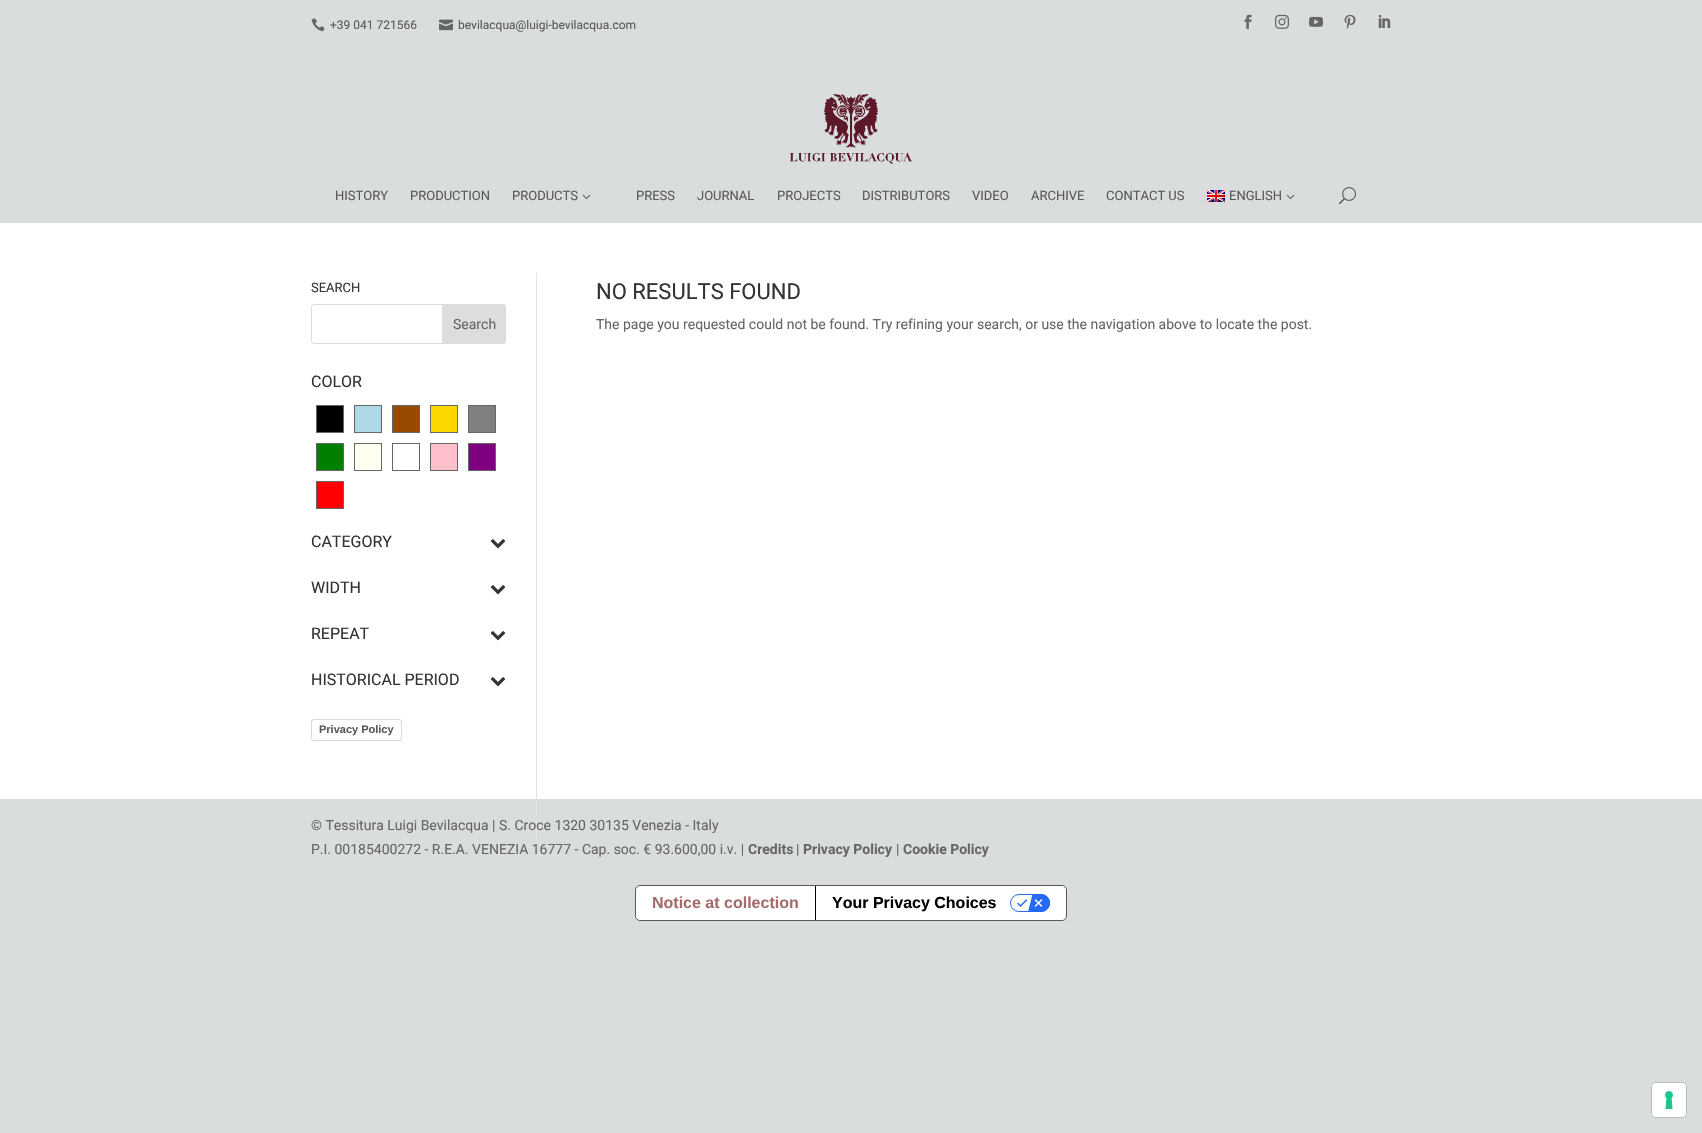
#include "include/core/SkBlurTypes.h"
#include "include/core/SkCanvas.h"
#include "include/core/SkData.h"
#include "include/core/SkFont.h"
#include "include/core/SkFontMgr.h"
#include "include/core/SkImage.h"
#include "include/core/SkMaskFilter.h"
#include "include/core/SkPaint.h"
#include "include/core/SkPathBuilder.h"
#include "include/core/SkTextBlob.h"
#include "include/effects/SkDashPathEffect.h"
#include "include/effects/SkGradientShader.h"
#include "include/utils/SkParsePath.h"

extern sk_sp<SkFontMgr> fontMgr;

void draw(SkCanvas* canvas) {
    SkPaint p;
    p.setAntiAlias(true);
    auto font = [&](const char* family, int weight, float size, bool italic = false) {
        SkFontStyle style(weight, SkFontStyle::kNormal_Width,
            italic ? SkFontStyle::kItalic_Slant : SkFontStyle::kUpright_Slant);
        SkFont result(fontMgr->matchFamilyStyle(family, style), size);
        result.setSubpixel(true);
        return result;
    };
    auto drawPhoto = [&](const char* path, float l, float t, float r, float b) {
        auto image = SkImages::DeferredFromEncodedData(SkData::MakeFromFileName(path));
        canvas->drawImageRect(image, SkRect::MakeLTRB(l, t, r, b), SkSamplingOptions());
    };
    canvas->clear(0xFFDADDDD);
    drawPhoto("media/1.png", 311, 18, 325, 32);
    auto font1 = font("Roboto", 400, 12);
    p.setColor(0xFF595959);
    canvas->drawString("+39 041 721566", 330, 29, font1, p);
    drawPhoto("media/2.png", 439, 19, 453, 31);
    canvas->drawString("bevilacqua@luigi-bevilacqua.com", 458, 29, font1, p);
    drawPhoto("media/3.png", 1244, 14, 1252, 29);
    drawPhoto("media/4.png", 1275, 14, 1289, 29);
    drawPhoto("media/5.png", 1309, 16, 1323, 27);
    drawPhoto("media/6.png", 1344, 14, 1356, 29);
    drawPhoto("media/7.png", 1378, 14, 1391, 28);
    drawPhoto("media/8.png", 790, 94, 912, 164);
    auto font2 = font("Roboto", 400, 13);
    {
        const struct { const char* s; float x, y; } items[] = {
            {"HISTORY", 335, 200},
            {"PRODUCTION", 410, 200},
            {"PRODUCTS", 512, 200},
        };
        for (auto [s, x, y] : items) {
            canvas->drawString(s, x, y, font2, p);
        }
    }
    drawPhoto("media/9.png", 582, 194, 591, 199);
    {
        const struct { const char* s; float x, y; } items[] = {
            {"PRESS", 636, 200},
            {"JOURNAL", 697, 200},
            {"PROJECTS", 777, 200},
            {"DISTRIBUTORS", 862, 200},
            {"VIDEO", 972, 200},
            {"ARCHIVE", 1031, 200},
            {"CONTACT US", 1106, 200},
        };
        for (auto [s, x, y] : items) {
            canvas->drawString(s, x, y, font2, p);
        }
    }
    drawPhoto("media/10.png", 1207, 190, 1225, 202);
    canvas->drawString("ENGLISH", 1229, 200, font2, p);
    drawPhoto("media/9.png", 1286, 194, 1295, 199);
    drawPhoto("media/11.png", 1339, 187, 1356, 205);
    p.setColor(0xFFFFFFFF);
    canvas->drawRect(SkRect::MakeLTRB(0, 223, 1702, 799), p);
    p.setColor(0xFFE2E2E2);
    canvas->drawRect(SkRect::MakeLTRB(536, 273, 537, 849), p);
    p.setColor(0xFF333333);
    canvas->drawString("SEARCH", 311, 292, font2, p);
    p.setStyle(SkPaint::kStroke_Style);
    p.setStrokeWidth(1);
    p.setColor(0xFFDDDDDD);
    canvas->drawRoundRect(SkRect::MakeLTRB(311.5f, 304.5f, 505.5f, 343.5f), 2.5f, 2.5f, p);
    p.setStyle(SkPaint::kFill_Style);
    canvas->drawPath(SkPathBuilder().moveTo(442.5f, 304.5f).lineTo(503, 304.5f).cubicTo(504.5f, 304.5f, 505.5f, 305.5f, 505.5f, 307).lineTo(505.5f, 341).cubicTo(505.5f, 342.5f, 504.5f, 343.5f, 503, 343.5f).lineTo(442.5f, 343.5f).close().detach(), p);
    p.setStyle(SkPaint::kStroke_Style);
    canvas->drawPath(SkPathBuilder().moveTo(442.5f, 304.5f).lineTo(503, 304.5f).cubicTo(504.5f, 304.5f, 505.5f, 305.5f, 505.5f, 307).lineTo(505.5f, 341).cubicTo(505.5f, 342.5f, 504.5f, 343.5f, 503, 343.5f).lineTo(442.5f, 343.5f).close().detach(), p);
    auto font3 = font("Roboto", 400, 14);
    p.setStyle(SkPaint::kFill_Style);
    p.setColor(0xFF666666);
    canvas->drawString("Search", 453, 329, font3, p);
    auto font4 = font("Roboto", 400, 16);
    p.setColor(0xFF333333);
    canvas->drawString("COLOR", 311, 387, font4, p);
    p.setColor(0xFF000000);
    canvas->drawRect(SkRect::MakeLTRB(316.5f, 405.5f, 343.5f, 432.5f), p);
    p.setStyle(SkPaint::kStroke_Style);
    p.setColor(0xFF666666);
    canvas->drawRect(SkRect::MakeLTRB(316.5f, 405.5f, 343.5f, 432.5f), p);
    p.setStyle(SkPaint::kFill_Style);
    p.setColor(0xFFADD8E6);
    canvas->drawRect(SkRect::MakeLTRB(354.5f, 405.5f, 381.5f, 432.5f), p);
    p.setStyle(SkPaint::kStroke_Style);
    p.setColor(0xFF666666);
    canvas->drawRect(SkRect::MakeLTRB(354.5f, 405.5f, 381.5f, 432.5f), p);
    p.setStyle(SkPaint::kFill_Style);
    p.setColor(0xFF964B00);
    canvas->drawRect(SkRect::MakeLTRB(392.5f, 405.5f, 419.5f, 432.5f), p);
    p.setStyle(SkPaint::kStroke_Style);
    p.setColor(0xFF666666);
    canvas->drawRect(SkRect::MakeLTRB(392.5f, 405.5f, 419.5f, 432.5f), p);
    p.setStyle(SkPaint::kFill_Style);
    p.setColor(0xFFFFD700);
    canvas->drawRect(SkRect::MakeLTRB(430.5f, 405.5f, 457.5f, 432.5f), p);
    p.setStyle(SkPaint::kStroke_Style);
    p.setColor(0xFF666666);
    canvas->drawRect(SkRect::MakeLTRB(430.5f, 405.5f, 457.5f, 432.5f), p);
    p.setStyle(SkPaint::kFill_Style);
    p.setColor(0xFF808080);
    canvas->drawRect(SkRect::MakeLTRB(468.5f, 405.5f, 495.5f, 432.5f), p);
    p.setStyle(SkPaint::kStroke_Style);
    p.setColor(0xFF666666);
    canvas->drawRect(SkRect::MakeLTRB(468.5f, 405.5f, 495.5f, 432.5f), p);
    p.setStyle(SkPaint::kFill_Style);
    p.setColor(0xFF008000);
    canvas->drawRect(SkRect::MakeLTRB(316.5f, 443.5f, 343.5f, 470.5f), p);
    p.setStyle(SkPaint::kStroke_Style);
    p.setColor(0xFF666666);
    canvas->drawRect(SkRect::MakeLTRB(316.5f, 443.5f, 343.5f, 470.5f), p);
    p.setStyle(SkPaint::kFill_Style);
    p.setColor(0xFFFFFFF0);
    canvas->drawRect(SkRect::MakeLTRB(354.5f, 443.5f, 381.5f, 470.5f), p);
    p.setStyle(SkPaint::kStroke_Style);
    p.setColor(0xFF666666);
    canvas->drawRect(SkRect::MakeLTRB(354.5f, 443.5f, 381.5f, 470.5f), p);
    canvas->drawRect(SkRect::MakeLTRB(392.5f, 443.5f, 419.5f, 470.5f), p);
    p.setStyle(SkPaint::kFill_Style);
    p.setColor(0xFFFFC0CB);
    canvas->drawRect(SkRect::MakeLTRB(430.5f, 443.5f, 457.5f, 470.5f), p);
    p.setStyle(SkPaint::kStroke_Style);
    p.setColor(0xFF666666);
    canvas->drawRect(SkRect::MakeLTRB(430.5f, 443.5f, 457.5f, 470.5f), p);
    p.setStyle(SkPaint::kFill_Style);
    p.setColor(0xFF800080);
    canvas->drawRect(SkRect::MakeLTRB(468.5f, 443.5f, 495.5f, 470.5f), p);
    p.setStyle(SkPaint::kStroke_Style);
    p.setColor(0xFF666666);
    canvas->drawRect(SkRect::MakeLTRB(468.5f, 443.5f, 495.5f, 470.5f), p);
    p.setStyle(SkPaint::kFill_Style);
    p.setColor(0xFFFF0000);
    canvas->drawRect(SkRect::MakeLTRB(316.5f, 481.5f, 343.5f, 508.5f), p);
    p.setStyle(SkPaint::kStroke_Style);
    p.setColor(0xFF666666);
    canvas->drawRect(SkRect::MakeLTRB(316.5f, 481.5f, 343.5f, 508.5f), p);
    p.setStyle(SkPaint::kFill_Style);
    p.setColor(0xFF333333);
    canvas->drawString("CATEGORY", 311, 547, font4, p);
    drawPhoto("media/12.png", 490, 539, 506, 549);
    canvas->drawString("WIDTH", 311, 593, font4, p);
    drawPhoto("media/12.png", 490, 585, 506, 595);
    canvas->drawString("REPEAT", 311, 639, font4, p);
    drawPhoto("media/12.png", 490, 631, 506, 641);
    canvas->drawString("HISTORICAL PERIOD", 311, 685, font4, p);
    drawPhoto("media/12.png", 490, 677, 506, 687);
    p.setColor(0x26000000);
    p.setMaskFilter(SkMaskFilter::MakeBlur(kNormal_SkBlurStyle, 0.5f));
    canvas->drawRoundRect(SkRect::MakeLTRB(312, 721, 401, 741), 2, 2, p);
    p.setMaskFilter(nullptr);
    p.setColor(0xFFFFFFFF);
    canvas->drawRoundRect(SkRect::MakeLTRB(311, 719, 402, 741), 3, 3, p);
    p.setStyle(SkPaint::kStroke_Style);
    p.setColor(0x26000000);
    canvas->drawRoundRect(SkRect::MakeLTRB(311.5f, 719.5f, 401.5f, 740.5f), 2.5f, 2.5f, p);
    auto font5 = font("Liberation Sans", 700, 11);
    p.setStyle(SkPaint::kFill_Style);
    p.setColor(0xFF595959);
    canvas->drawString("Privacy Policy", 319, 733, font5, p);
    auto font6 = font("Roboto", 400, 22);
    p.setColor(0xFF333333);
    canvas->drawString("NO RESULTS FOUND", 596, 299, font6, p);
    p.setColor(0xFF666666);
    {
        const struct { const char* s; float x, y; } items[] = {
            {"The page you requested could not be found. Try refining your search, or use the navigation above to locate the post.", 596, 329},
            {"© Tessitura Luigi Bevilacqua | S. Croce 1320 30135 Venezia - Italy", 311, 830},
            {"P.I. 00185400272 - R.E.A. VENEZIA 16777 - Cap. soc. € 93.600,00 i.v. |", 311, 854},
        };
        for (auto [s, x, y] : items) {
            canvas->drawString(s, x, y, font3, p);
        }
    }
    auto font7 = font("Roboto", 700, 14);
    canvas->drawString("Credits", 748, 854, font7, p);
    canvas->drawString("|", 796, 854, font3, p);
    canvas->drawString("Privacy Policy", 803, 854, font7, p);
    canvas->drawString("|", 896, 854, font3, p);
    canvas->drawString("Cookie Policy", 903, 854, font7, p);
    p.setColor(0xFFFFFFFF);
    canvas->drawRoundRect(SkRect::MakeLTRB(635.5f, 885.5f, 1066.5f, 920.5f), 4.5f, 4.5f, p);
    p.setStyle(SkPaint::kStroke_Style);
    p.setColor(0xFF595959);
    canvas->drawRoundRect(SkRect::MakeLTRB(635.5f, 885.5f, 1066.5f, 920.5f), 4.5f, 4.5f, p);
    auto font8 = font("Liberation Sans", 700, 16);
    p.setStyle(SkPaint::kFill_Style);
    p.setColor(0xFFA36B6A);
    canvas->drawString("Notice at collection", 652, 908, font8, p);
    p.setColor(0xFF000000);
    canvas->drawRect(SkRect::MakeLTRB(815, 886, 816, 920), p);
    canvas->drawString("Your Privacy Choices", 832, 908, font8, p);
    drawPhoto("media/13.png", 1010, 894, 1050, 912);
    p.setStyle(SkPaint::kStroke_Style);
    p.setColor(0xFFB9BCBC);
    canvas->drawRoundRect(SkRect::MakeLTRB(1651.5f, 1082.5f, 1686.5f, 1117.5f), 4.5f, 4.5f, p);
    p.setStyle(SkPaint::kFill_Style);
    p.setColor(0xFFFFFFFF);
    canvas->drawRoundRect(SkRect::MakeLTRB(1652, 1083, 1686, 1117), 4, 4, p);
    drawPhoto("media/14.png", 1665, 1091, 1673, 1109);
}
